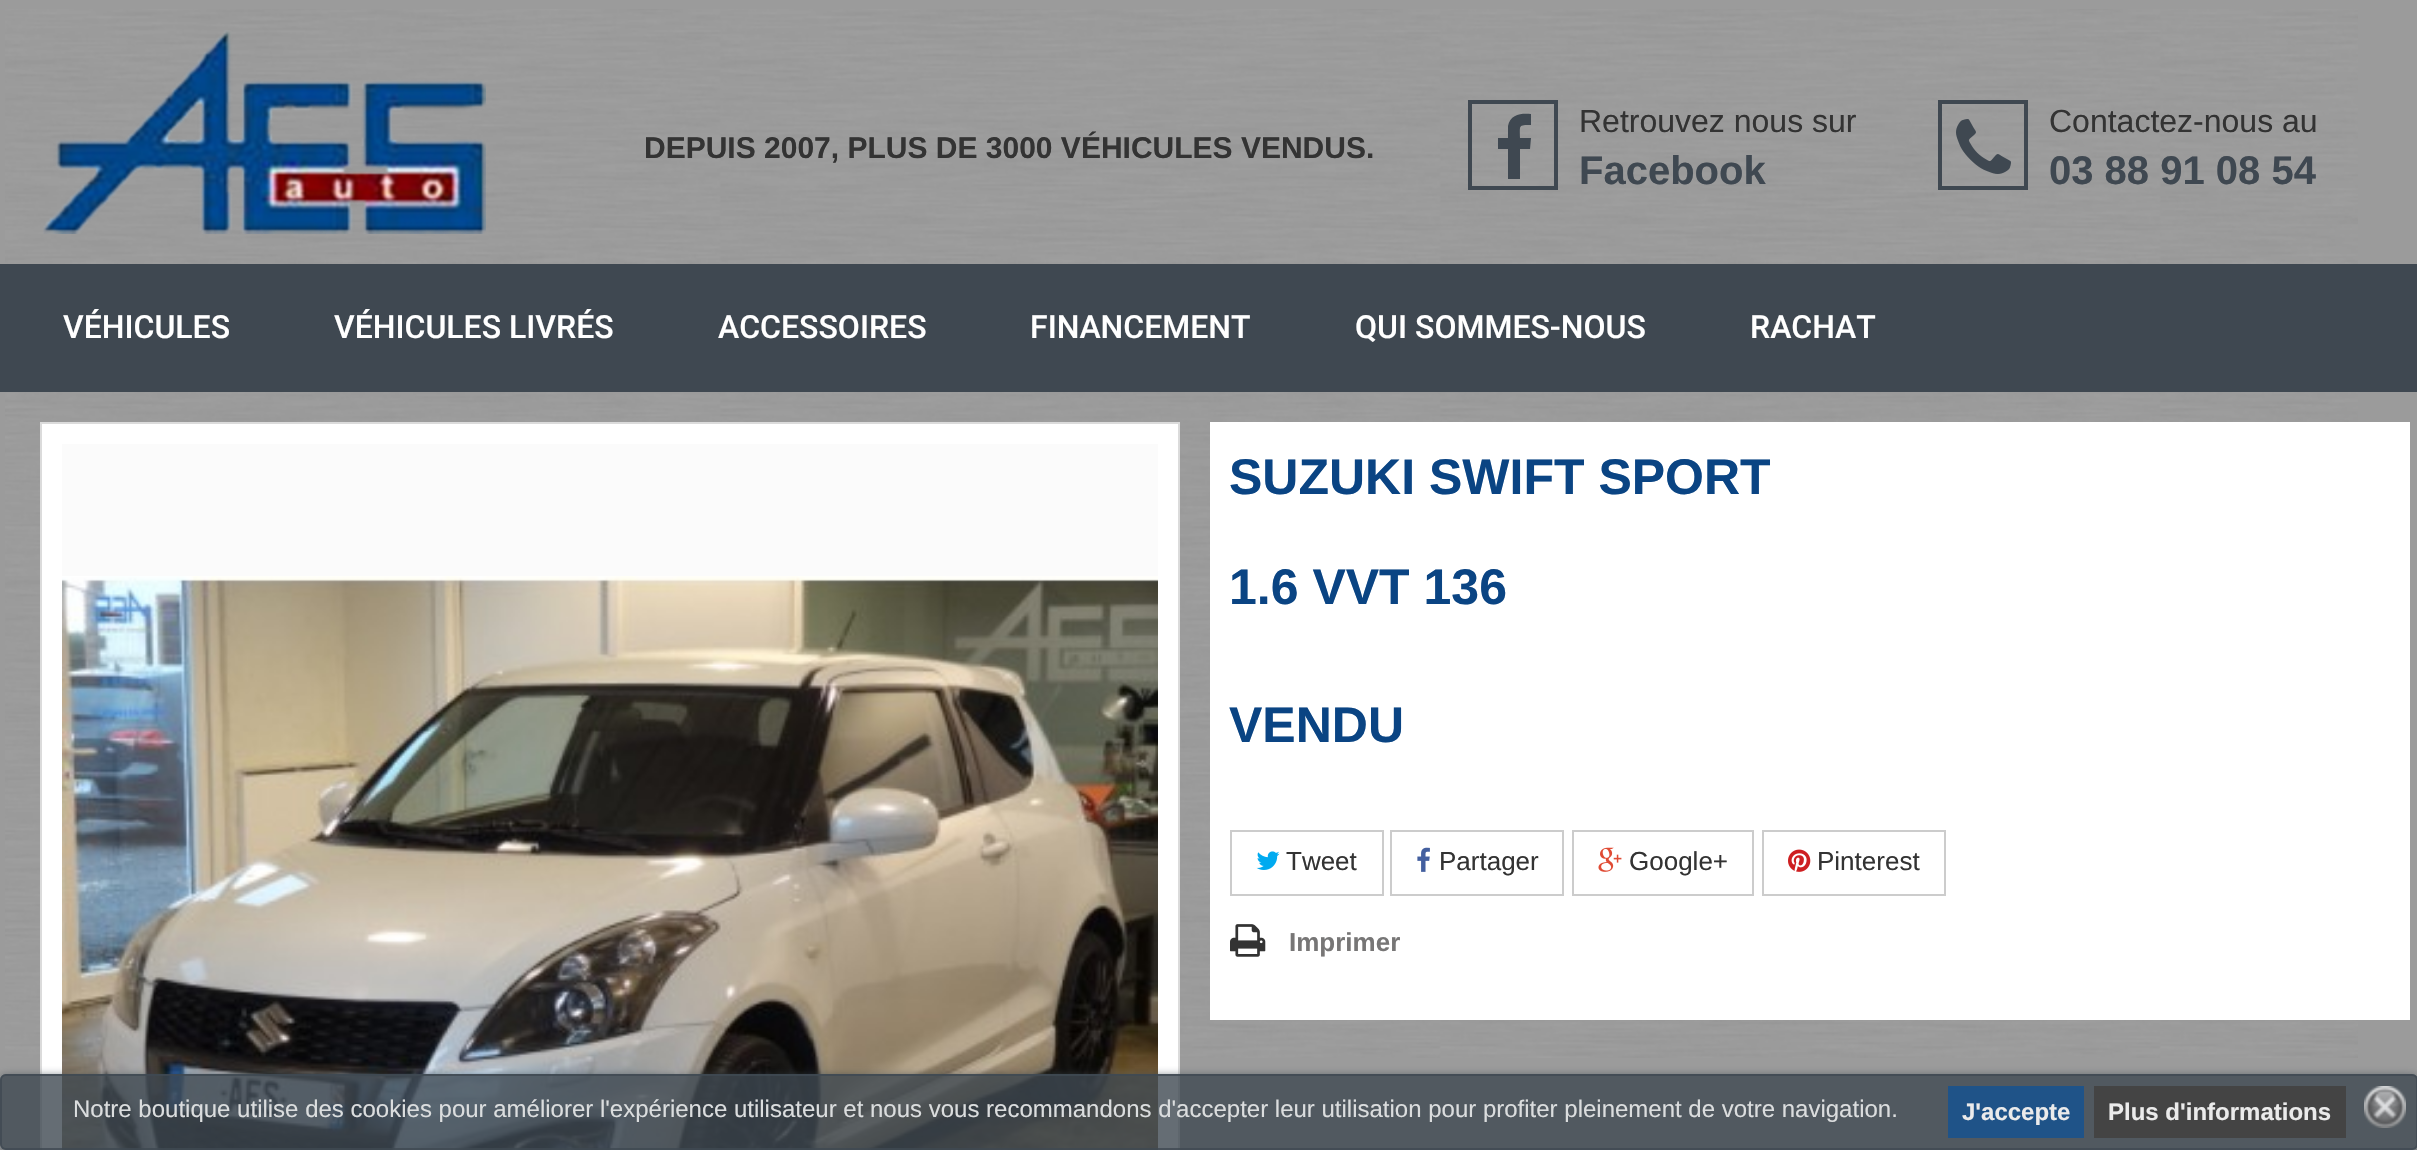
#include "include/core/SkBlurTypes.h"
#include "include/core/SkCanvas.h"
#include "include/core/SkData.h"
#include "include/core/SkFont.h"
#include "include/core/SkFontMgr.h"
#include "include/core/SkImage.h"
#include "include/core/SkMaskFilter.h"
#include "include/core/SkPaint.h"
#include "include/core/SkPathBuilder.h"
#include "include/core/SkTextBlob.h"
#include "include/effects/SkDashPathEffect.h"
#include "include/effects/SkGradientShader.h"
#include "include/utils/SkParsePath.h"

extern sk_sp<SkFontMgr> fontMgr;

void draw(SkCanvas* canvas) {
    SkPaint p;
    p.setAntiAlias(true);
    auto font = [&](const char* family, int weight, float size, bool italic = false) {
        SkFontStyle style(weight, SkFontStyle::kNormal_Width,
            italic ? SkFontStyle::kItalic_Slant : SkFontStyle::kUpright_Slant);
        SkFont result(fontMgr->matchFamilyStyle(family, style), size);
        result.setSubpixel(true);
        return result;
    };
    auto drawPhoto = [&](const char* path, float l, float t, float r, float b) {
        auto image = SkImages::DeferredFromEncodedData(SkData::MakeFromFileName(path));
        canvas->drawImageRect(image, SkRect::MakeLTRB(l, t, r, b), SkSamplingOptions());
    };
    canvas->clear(0xFF9B9B9B);
    drawPhoto("media/1.png", 5, 9, 2358, 1058);
    drawPhoto("media/2.png", 43, 30, 486, 234);
    auto font1 = font("Liberation Sans", 700, 30);
    p.setColor(0xFF333333);
    canvas->drawString("DEPUIS 2007, PLUS DE 3000 VÉHICULES VENDUS.", 644, 158, font1, p);
    p.setStyle(SkPaint::kStroke_Style);
    p.setStrokeWidth(4);
    p.setColor(0xFF3F4851);
    canvas->drawRect(SkRect::MakeLTRB(1470, 102, 1556, 188), p);
    p.setStyle(SkPaint::kFill_Style);
    canvas->drawPath(SkPathBuilder().moveTo(1531, 114).lineTo(1531, 125).cubicTo(1518, 125, 1520, 125, 1520, 138).lineTo(1531, 138).lineTo(1530, 149).lineTo(1520, 149).lineTo(1520, 179).lineTo(1508, 179).lineTo(1508, 149).lineTo(1498, 149).lineTo(1498, 138).lineTo(1508, 138).lineTo(1508, 126).cubicTo(1510, 114, 1522, 113, 1531, 114).close().detach(), p);
    auto font2 = font("Liberation Sans", 400, 32);
    p.setColor(0xFF333333);
    canvas->drawString("Retrouvez nous sur", 1579, 132, font2, p);
    auto font3 = font("Liberation Sans", 700, 40);
    p.setColor(0xFF3F4851);
    canvas->drawString("Facebook", 1579, 184, font3, p);
    p.setStyle(SkPaint::kStroke_Style);
    canvas->drawRect(SkRect::MakeLTRB(1940, 102, 2026, 188), p);
    drawPhoto("media/3.png", 1956, 119, 2011, 174);
    p.setStyle(SkPaint::kFill_Style);
    p.setColor(0xFF333333);
    canvas->drawString("Contactez-nous au", 2049, 132, font2, p);
    p.setColor(0xFF3F4851);
    canvas->drawString("03 88 91 08 54", 2049, 184, font3, p);
    canvas->drawRect(SkRect::MakeLTRB(0, 264, 2417, 392), p);
    auto font4 = font("Roboto", 500, 32);
    p.setColor(0xFFFFFFFF);
    {
        const struct { const char* s; float x, y; } items[] = {
            {"VÉHICULES", 63, 338},
            {"VÉHICULES LIVRÉS", 334, 338},
            {"ACCESSOIRES", 718, 338},
            {"FINANCEMENT", 1030, 338},
            {"QUI SOMMES-NOUS", 1355, 338},
            {"RACHAT", 1750, 338},
        };
        for (auto [s, x, y] : items) {
            canvas->drawString(s, x, y, font4, p);
        }
    }
    canvas->drawRect(SkRect::MakeLTRB(41, 423, 1179, 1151), p);
    p.setStyle(SkPaint::kStroke_Style);
    p.setStrokeWidth(2);
    p.setColor(0xFFDBDBDB);
    canvas->drawRect(SkRect::MakeLTRB(41, 423, 1179, 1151), p);
    drawPhoto("media/5.png", 62, 576, 1158, 1150);
    canvas->save();
    canvas->clipPath(SkPathBuilder(SkPathFillType::kEvenOdd).moveTo(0, 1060).lineTo(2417, 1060).lineTo(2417, 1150).lineTo(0, 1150).close().moveTo(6, 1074).lineTo(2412, 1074).cubicTo(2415.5f, 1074, 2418, 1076.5f, 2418, 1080).lineTo(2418, 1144).cubicTo(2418, 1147.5f, 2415.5f, 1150, 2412, 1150).lineTo(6, 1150).cubicTo(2.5f, 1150, 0, 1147.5f, 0, 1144).lineTo(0, 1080).cubicTo(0, 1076.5f, 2.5f, 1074, 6, 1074).close().detach(), true);
    p.setStyle(SkPaint::kFill_Style);
    p.setColor(0xCC3F4851);
    p.setMaskFilter(SkMaskFilter::MakeBlur(kNormal_SkBlurStyle, 5));
    canvas->drawRoundRect(SkRect::MakeLTRB(0, 1076, 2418, 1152), 6, 6, p);
    p.setMaskFilter(nullptr);
    canvas->restore();
    canvas->drawRoundRect(SkRect::MakeLTRB(0, 1074, 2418, 1150), 6, 6, p);
    p.setStyle(SkPaint::kStroke_Style);
    canvas->drawRoundRect(SkRect::MakeLTRB(1, 1075, 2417, 1149), 5, 5, p);
    auto font5 = font("Liberation Sans", 400, 24);
    p.setStyle(SkPaint::kFill_Style);
    p.setColor(0xFFDBDDDE);
    canvas->drawString("Notre boutique utilise des cookies pour améliorer l'expérience utilisateur et nous vous recommandons d'accepter leur utilisation pour profiter pleinement de votre navigation.", 73, 1117, font5, p);
    p.setColor(0xFF1F5388);
    canvas->drawRect(SkRect::MakeLTRB(1948, 1086, 2084, 1138), p);
    auto font6 = font("Liberation Sans", 700, 24);
    p.setColor(0xFFEBEBEB);
    canvas->drawString("J'accepte", 1962, 1120, font6, p);
    p.setColor(0xFF444444);
    canvas->drawRect(SkRect::MakeLTRB(2094, 1086, 2346, 1138), p);
    p.setColor(0xFFEBEBEB);
    canvas->drawString("Plus d'informations", 2108, 1120, font6, p);
    drawPhoto("media/4.png", 2364, 1086, 2406, 1128);
    p.setColor(0xFFFBFBFB);
    canvas->drawRect(SkRect::MakeLTRB(62, 444, 1158, 576), p);
    p.setColor(0xFFFFFFFF);
    canvas->drawRect(SkRect::MakeLTRB(1210, 422, 2410, 1020), p);
    auto font7 = font("Liberation Sans", 700, 50);
    p.setColor(0xFF0A4483);
    {
        const struct { const char* s; float x, y; } items[] = {
            {"SUZUKI SWIFT SPORT", 1229, 494},
            {"1.6 VVT 136", 1229, 604},
            {"VENDU", 1229, 742},
        };
        for (auto [s, x, y] : items) {
            canvas->drawString(s, x, y, font7, p);
        }
    }
    p.setStyle(SkPaint::kStroke_Style);
    p.setColor(0xFFCCCCCC);
    canvas->drawRect(SkRect::MakeLTRB(1231, 831, 1383, 895), p);
    drawPhoto("media/6.png", 1256, 851, 1280, 870);
    auto font8 = font("Liberation Sans", 400, 26);
    p.setStyle(SkPaint::kFill_Style);
    p.setColor(0xFF333333);
    canvas->drawString("Tweet", 1286, 870, font8, p);
    p.setStyle(SkPaint::kStroke_Style);
    p.setColor(0xFFCCCCCC);
    canvas->drawRect(SkRect::MakeLTRB(1391, 831, 1563, 895), p);
    drawPhoto("media/7.png", 1417, 847, 1430, 872);
    p.setStyle(SkPaint::kFill_Style);
    p.setColor(0xFF333333);
    canvas->drawString("Partager", 1439, 870, font8, p);
    p.setStyle(SkPaint::kStroke_Style);
    p.setColor(0xFFCCCCCC);
    canvas->drawRect(SkRect::MakeLTRB(1573, 831, 1753, 895), p);
    drawPhoto("media/8.png", 1598, 847, 1622, 872);
    p.setStyle(SkPaint::kFill_Style);
    p.setColor(0xFF333333);
    canvas->drawString("Google+", 1629, 870, font8, p);
    p.setStyle(SkPaint::kStroke_Style);
    p.setColor(0xFFCCCCCC);
    canvas->drawRect(SkRect::MakeLTRB(1763, 831, 1945, 895), p);
    drawPhoto("media/9.png", 1788, 849, 1811, 872);
    p.setStyle(SkPaint::kFill_Style);
    p.setColor(0xFF333333);
    canvas->drawString("Pinterest", 1817, 870, font8, p);
    drawPhoto("media/10.png", 1230, 924, 1266, 957);
    auto font9 = font("Liberation Sans", 700, 26);
    p.setColor(0xFF777676);
    canvas->drawString("Imprimer", 1289, 951, font9, p);
}
